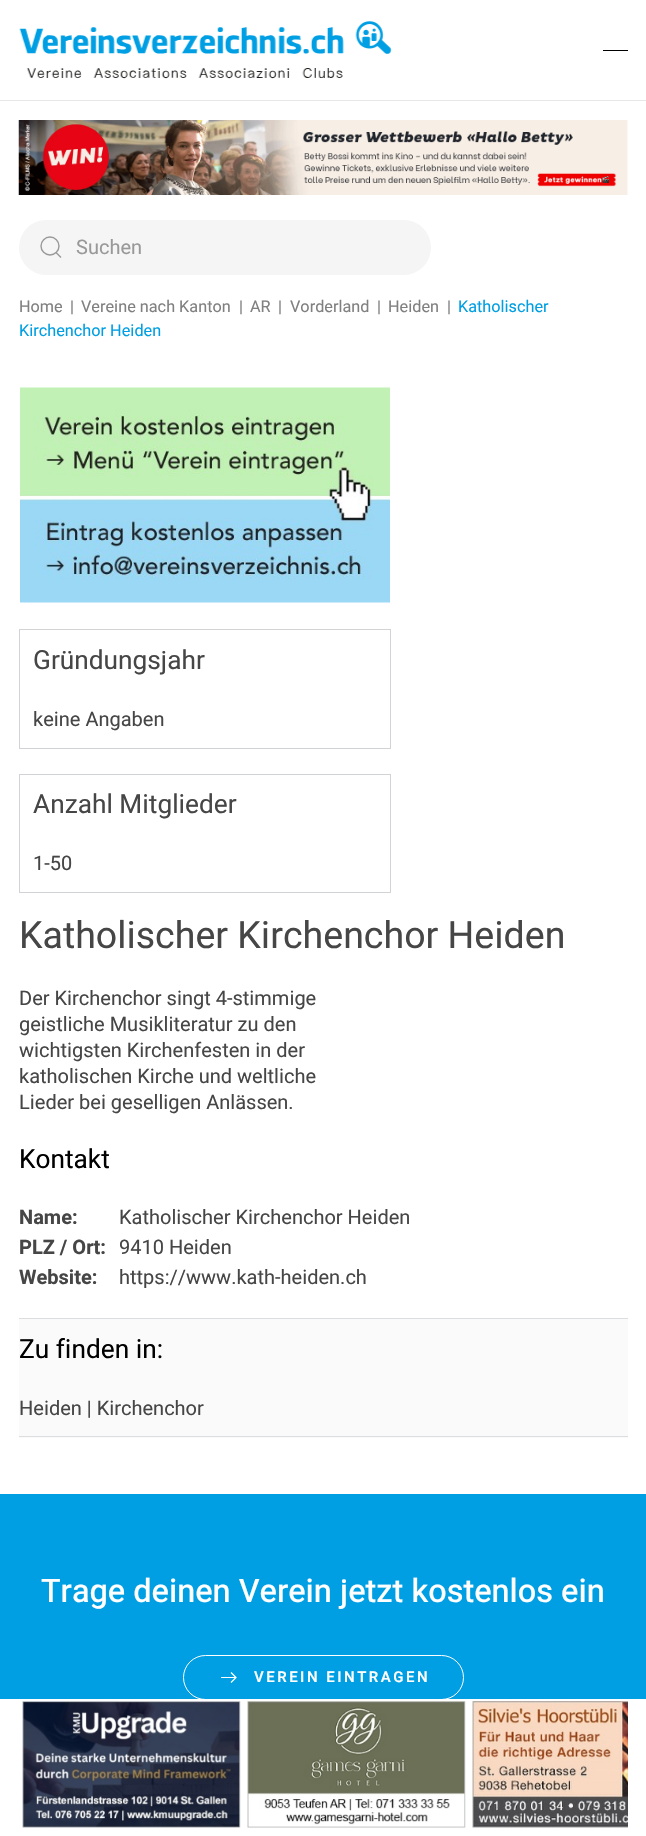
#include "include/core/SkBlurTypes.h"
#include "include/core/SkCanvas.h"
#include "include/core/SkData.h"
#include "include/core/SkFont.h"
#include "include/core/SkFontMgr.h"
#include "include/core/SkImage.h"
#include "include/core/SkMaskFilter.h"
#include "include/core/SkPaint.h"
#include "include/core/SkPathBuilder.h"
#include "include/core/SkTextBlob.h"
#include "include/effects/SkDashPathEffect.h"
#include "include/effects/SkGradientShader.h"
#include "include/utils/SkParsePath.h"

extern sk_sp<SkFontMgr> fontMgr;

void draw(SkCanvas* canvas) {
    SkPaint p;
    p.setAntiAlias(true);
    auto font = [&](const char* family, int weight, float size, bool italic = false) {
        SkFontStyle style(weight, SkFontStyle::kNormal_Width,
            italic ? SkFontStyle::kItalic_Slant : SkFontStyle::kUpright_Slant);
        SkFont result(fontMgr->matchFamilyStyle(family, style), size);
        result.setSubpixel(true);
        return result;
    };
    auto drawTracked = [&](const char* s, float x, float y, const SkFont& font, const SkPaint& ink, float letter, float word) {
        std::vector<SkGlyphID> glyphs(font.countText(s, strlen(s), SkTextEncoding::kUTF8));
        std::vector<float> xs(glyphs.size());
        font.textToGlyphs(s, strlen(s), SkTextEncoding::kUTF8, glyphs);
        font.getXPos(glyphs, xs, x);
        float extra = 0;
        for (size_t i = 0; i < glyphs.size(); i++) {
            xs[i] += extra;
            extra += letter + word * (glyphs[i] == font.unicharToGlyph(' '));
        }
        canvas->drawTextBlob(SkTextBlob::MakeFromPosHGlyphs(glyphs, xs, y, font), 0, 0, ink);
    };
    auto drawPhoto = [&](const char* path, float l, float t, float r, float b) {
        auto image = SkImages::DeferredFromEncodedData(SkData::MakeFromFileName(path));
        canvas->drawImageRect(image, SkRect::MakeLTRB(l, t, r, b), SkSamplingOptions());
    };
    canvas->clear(0xFFFFFFFF);
    p.setColor(0xFFE8E8E8);
    canvas->drawRect(SkRect::MakeLTRB(0, 100, 646, 101), p);
    drawPhoto("media/1.png", 19, 21, 392, 79);
    p.setColor(0xFF000000);
    canvas->drawRect(SkRect::MakeLTRB(603, 50, 628, 51), p);
    drawPhoto("media/2.png", 18, 120, 628, 195);
    p.setColor(0xFFF5F5F5);
    canvas->drawRoundRect(SkRect::MakeLTRB(19, 220, 431, 275), 27.5f, 27.5f, p);
    p.setStyle(SkPaint::kStroke_Style);
    p.setStrokeWidth(1.4f);
    p.setColor(0xFF999999);
    canvas->drawCircle(50, 246, 9, p);
    canvas->drawPath(SkPathBuilder().moveTo(56, 252.5f).lineTo(61, 257.5f).close().detach(), p);
    auto font1 = font("Heebo", 400, 20);
    p.setStyle(SkPaint::kFill_Style);
    canvas->drawString("Suchen", 76, 254, font1, p);
    auto font2 = font("Heebo", 400, 16.25f);
    p.setColor(0xFF818080);
    canvas->drawString("|", 447, 312, font2, p);
    p.setColor(0xFF009FE3);
    canvas->drawString("Katholischer", 458, 312, font2, p);
    canvas->drawString("Kirchenchor Heiden", 19, 336, font2, p);
    p.setColor(0xFF818080);
    {
        const struct { const char* s; float x, y; } items[] = {
            {"Home", 19, 312},
            {"|", 70, 312},
            {"Vereine nach Kanton", 81, 312},
            {"|", 239, 312},
            {"AR", 250, 312},
            {"|", 278, 312},
            {"Vorderland", 290, 312},
            {"|", 377, 312},
            {"Heiden", 388, 312},
        };
        for (auto [s, x, y] : items) {
            canvas->drawString(s, x, y, font2, p);
        }
    }
    drawPhoto("media/3.png", 20, 387, 390, 603);
    p.setStyle(SkPaint::kStroke_Style);
    p.setStrokeWidth(1);
    p.setColor(0xFFD2D3D4);
    canvas->drawRect(SkRect::MakeLTRB(19.5f, 629.5f, 390.5f, 748.5f), p);
    auto font3 = font("Heebo", 400, 26.25f);
    p.setStyle(SkPaint::kFill_Style);
    p.setColor(0xFF464646);
    canvas->drawString("Gründungsjahr", 33, 669, font3, p);
    canvas->drawString("keine Angaben", 33, 726, font1, p);
    p.setStyle(SkPaint::kStroke_Style);
    p.setColor(0xFFD2D3D4);
    canvas->drawRect(SkRect::MakeLTRB(19.5f, 774.5f, 390.5f, 892.5f), p);
    p.setStyle(SkPaint::kFill_Style);
    p.setColor(0xFF464646);
    canvas->drawString("Anzahl Mitglieder", 33, 813, font3, p);
    canvas->drawString("1-50", 33, 870, font1, p);
    auto font4 = font("Heebo", 400, 37.5f);
    canvas->drawString("Katholischer Kirchenchor Heiden", 19, 948, font4, p);
    {
        const struct { const char* s; float x, y; } items[] = {
            {"Der Kirchenchor singt 4-stimmige", 19, 1005},
            {"geistliche Musikliteratur zu den", 19, 1031},
            {"wichtigsten Kirchenfesten in der", 19, 1057},
            {"katholischen Kirche und weltliche", 19, 1083},
            {"Lieder bei geselligen Anlässen.", 19, 1109},
        };
        for (auto [s, x, y] : items) {
            canvas->drawString(s, x, y, font1, p);
        }
    }
    p.setColor(0xFF000000);
    canvas->drawString("Kontakt", 19, 1168, font3, p);
    auto font5 = font("Heebo", 700, 20);
    p.setColor(0xFF464646);
    canvas->drawString("Name:", 19, 1224, font5, p);
    canvas->drawString("Katholischer Kirchenchor Heiden", 119, 1224, font1, p);
    canvas->drawString("PLZ / Ort:", 19, 1254, font5, p);
    canvas->drawString("9410 Heiden", 119, 1254, font1, p);
    canvas->drawString("Website:", 19, 1284, font5, p);
    canvas->drawString("https://www.kath-heiden.ch", 119, 1284, font1, p);
    {
        const struct { float l, t, r, b; SkColor color; } items[] = {
            {19, 1319, 628, 1438, 0xFFFAFAFA},
            {19, 1318, 628, 1319, 0xFFDCDDDE},
            {19, 1436, 628, 1437, 0xFFDCDDDE},
        };
        for (auto [l, t, r, b, color] : items) {
            p.setColor(color);
            canvas->drawRect(SkRect::MakeLTRB(l, t, r, b), p);
        }
    }
    p.setColor(0xFF000000);
    canvas->drawString("Zu finden in:", 19, 1358, font3, p);
    p.setColor(0xFF464646);
    canvas->drawString("Heiden | Kirchenchor", 19, 1415, font1, p);
    p.setColor(0xFF009FE3);
    canvas->drawRect(SkRect::MakeLTRB(0, 1494, 646, 1699), p);
    auto font6 = font("Heebo", 500, 32.5f);
    p.setColor(0xFFFFFFFF);
    canvas->drawString("Trage deinen Verein jetzt kostenlos ein", 41, 1602, font6, p);
    p.setStyle(SkPaint::kStroke_Style);
    canvas->drawRoundRect(SkRect::MakeLTRB(183.5f, 1655.5f, 463.5f, 1699.5f), 22, 22, p);
    p.setStyle(SkPaint::kFill_Style);
    canvas->drawRect(SkRect::MakeLTRB(221, 1677, 236, 1678), p);
    p.setStyle(SkPaint::kStroke_Style);
    p.setStrokeWidth(1.2f);
    canvas->drawPath(SkPathBuilder().moveTo(231, 1682.5f).lineTo(236, 1677.5f).lineTo(231, 1672.5f).detach(), p);
    auto font7 = font("Heebo", 600, 15);
    p.setStyle(SkPaint::kFill_Style);
    drawTracked("VEREIN EINTRAGEN", 254, 1682, font7, p, 2.5f, 0);
    drawPhoto("media/4.png", 22, 1701, 241, 1828);
    drawPhoto("media/5.png", 247, 1701, 466, 1828);
    drawPhoto("media/6.png", 472, 1701, 628, 1828);
}
